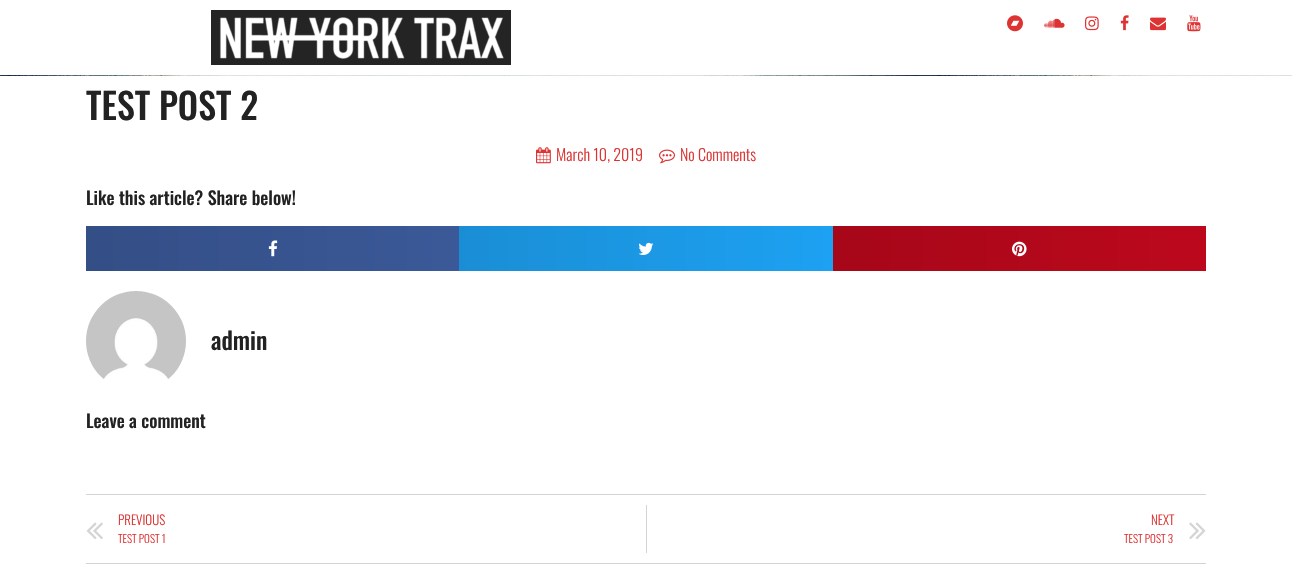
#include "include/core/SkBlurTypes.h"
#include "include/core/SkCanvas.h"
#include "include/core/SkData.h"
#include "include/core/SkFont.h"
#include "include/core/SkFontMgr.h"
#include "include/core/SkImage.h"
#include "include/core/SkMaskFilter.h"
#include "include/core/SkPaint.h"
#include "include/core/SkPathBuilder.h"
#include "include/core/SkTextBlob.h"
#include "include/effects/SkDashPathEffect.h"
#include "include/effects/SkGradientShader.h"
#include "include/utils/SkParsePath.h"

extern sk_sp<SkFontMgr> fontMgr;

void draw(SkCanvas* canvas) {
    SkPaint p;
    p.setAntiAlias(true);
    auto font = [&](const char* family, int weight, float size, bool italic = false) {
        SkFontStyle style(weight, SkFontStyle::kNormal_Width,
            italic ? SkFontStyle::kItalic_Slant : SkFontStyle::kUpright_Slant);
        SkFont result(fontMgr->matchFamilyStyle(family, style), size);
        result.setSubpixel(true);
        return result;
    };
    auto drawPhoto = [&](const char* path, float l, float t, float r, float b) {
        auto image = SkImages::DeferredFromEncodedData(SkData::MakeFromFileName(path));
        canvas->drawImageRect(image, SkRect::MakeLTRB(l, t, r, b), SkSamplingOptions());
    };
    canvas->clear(0xFFFFFFFF);
    drawPhoto("media/1.png", 211, 10, 511, 65);
    drawPhoto("media/2.png", 1007, 15, 1023, 32);
    drawPhoto("media/3.png", 1044, 18, 1065, 28);
    drawPhoto("media/4.png", 1085, 16, 1099, 31);
    drawPhoto("media/5.png", 1120, 15, 1129, 31);
    drawPhoto("media/6.png", 1150, 17, 1166, 31);
    drawPhoto("media/7.png", 1187, 15, 1201, 32);
    drawPhoto("media/8.png", 0, 75, 1292, 76);
    auto font1 = font("Oswald", 500, 36);
    p.setColor(0xFF222222);
    canvas->drawString("TEST POST 2", 86, 120, font1, p);
    drawPhoto("media/9.png", 536, 147, 551, 164);
    auto font2 = font("Oswald", 300, 16);
    p.setColor(0xFFDD3333);
    canvas->drawString("March 10, 2019", 556, 161, font2, p);
    drawPhoto("media/10.png", 659, 149, 675, 164);
    canvas->drawString("No Comments", 680, 161, font2, p);
    auto font3 = font("Oswald", 500, 18);
    p.setColor(0xFF222222);
    canvas->drawString("Like this article? Share below!", 86, 205, font3, p);
    {
        const SkColor colors[] = {0xFF344E86, 0xFF3B5998};
        const float stops[] = {0, 1};
        const SkPoint ends[] = {{86, 249}, {459, 249}};
        p.setShader(SkGradientShader::MakeLinear(ends, colors, stops, 2, SkTileMode::kClamp));
        p.setAlpha(255);
    }
    canvas->drawRect(SkRect::MakeLTRB(86, 226, 459, 271), p);
    drawPhoto("media/11.png", 268, 240, 278, 257);
    {
        const SkColor colors[] = {0xFF1A8ED5, 0xFF1DA1F2};
        const float stops[] = {0, 1};
        const SkPoint ends[] = {{459, 249}, {833, 249}};
        p.setShader(SkGradientShader::MakeLinear(ends, colors, stops, 2, SkTileMode::kClamp));
        p.setAlpha(255);
    }
    canvas->drawRect(SkRect::MakeLTRB(459, 226, 833, 271), p);
    drawPhoto("media/12.png", 638, 242, 654, 255);
    {
        const SkColor colors[] = {0xFFA60719, 0xFFBD081C};
        const float stops[] = {0, 1};
        const SkPoint ends[] = {{833, 249}, {1206, 249}};
        p.setShader(SkGradientShader::MakeLinear(ends, colors, stops, 2, SkTileMode::kClamp));
        p.setAlpha(255);
    }
    canvas->drawRect(SkRect::MakeLTRB(833, 226, 1206, 271), p);
    drawPhoto("media/13.png", 1012, 241, 1027, 257);
    drawPhoto("media/14.png", 86, 291, 186, 379);
    auto font4 = font("Oswald", 500, 24);
    p.setShader(nullptr);
    p.setColor(0xFF222222);
    canvas->drawString("admin", 211, 350, font4, p);
    canvas->drawString("Leave a comment", 86, 428, font3, p);
    p.setColor(0xFFD4D4D4);
    canvas->drawRect(SkRect::MakeLTRB(86, 494, 1206, 495), p);
    canvas->drawRect(SkRect::MakeLTRB(86, 563, 1206, 564), p);
    drawPhoto("media/15.png", 86, 522, 103, 540);
    auto font5 = font("Oswald", 300, 13);
    p.setColor(0xFFDD3333);
    canvas->drawString("PREVIOUS", 118, 525, font5, p);
    auto font6 = font("Oswald", 300, 11);
    canvas->drawString("TEST POST 1", 118, 543, font6, p);
    p.setColor(0xFFD4D4D4);
    canvas->drawRect(SkRect::MakeLTRB(646, 505, 647, 553), p);
    p.setColor(0xFFDD3333);
    canvas->drawString("NEXT", 1151, 525, font5, p);
    canvas->drawString("TEST POST 3", 1124, 543, font6, p);
    drawPhoto("media/16.png", 1189, 522, 1206, 540);
}
